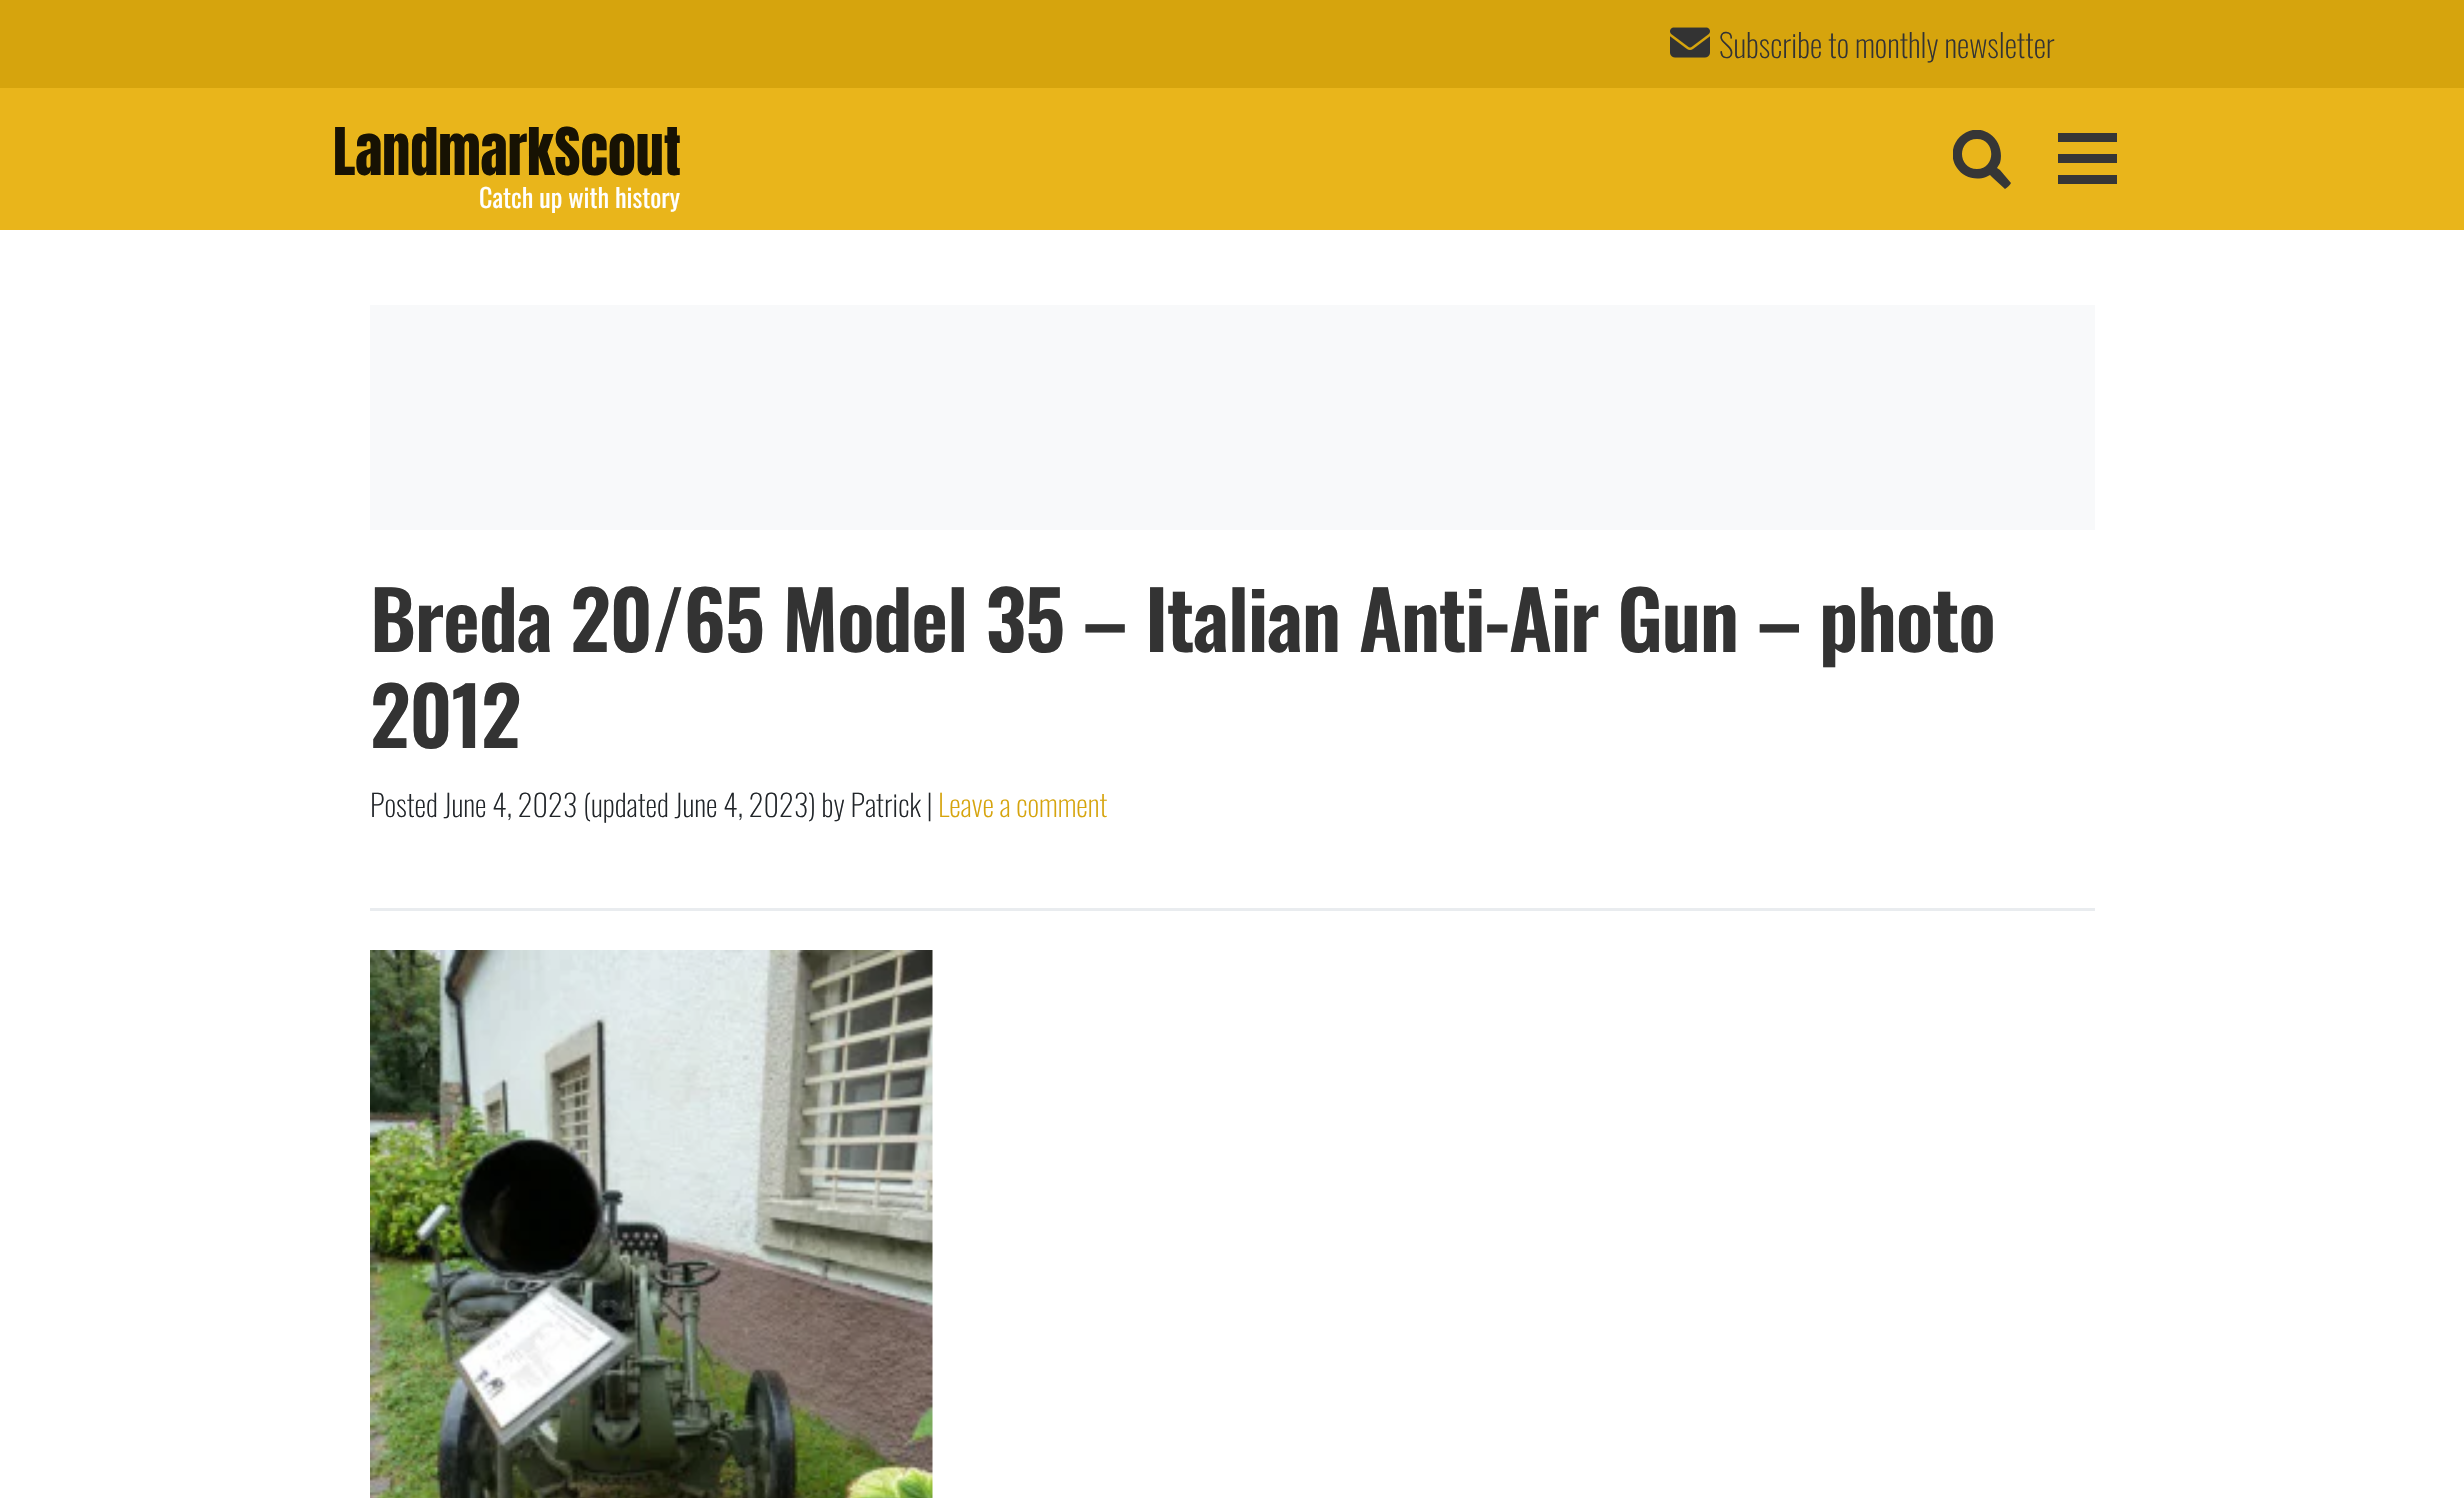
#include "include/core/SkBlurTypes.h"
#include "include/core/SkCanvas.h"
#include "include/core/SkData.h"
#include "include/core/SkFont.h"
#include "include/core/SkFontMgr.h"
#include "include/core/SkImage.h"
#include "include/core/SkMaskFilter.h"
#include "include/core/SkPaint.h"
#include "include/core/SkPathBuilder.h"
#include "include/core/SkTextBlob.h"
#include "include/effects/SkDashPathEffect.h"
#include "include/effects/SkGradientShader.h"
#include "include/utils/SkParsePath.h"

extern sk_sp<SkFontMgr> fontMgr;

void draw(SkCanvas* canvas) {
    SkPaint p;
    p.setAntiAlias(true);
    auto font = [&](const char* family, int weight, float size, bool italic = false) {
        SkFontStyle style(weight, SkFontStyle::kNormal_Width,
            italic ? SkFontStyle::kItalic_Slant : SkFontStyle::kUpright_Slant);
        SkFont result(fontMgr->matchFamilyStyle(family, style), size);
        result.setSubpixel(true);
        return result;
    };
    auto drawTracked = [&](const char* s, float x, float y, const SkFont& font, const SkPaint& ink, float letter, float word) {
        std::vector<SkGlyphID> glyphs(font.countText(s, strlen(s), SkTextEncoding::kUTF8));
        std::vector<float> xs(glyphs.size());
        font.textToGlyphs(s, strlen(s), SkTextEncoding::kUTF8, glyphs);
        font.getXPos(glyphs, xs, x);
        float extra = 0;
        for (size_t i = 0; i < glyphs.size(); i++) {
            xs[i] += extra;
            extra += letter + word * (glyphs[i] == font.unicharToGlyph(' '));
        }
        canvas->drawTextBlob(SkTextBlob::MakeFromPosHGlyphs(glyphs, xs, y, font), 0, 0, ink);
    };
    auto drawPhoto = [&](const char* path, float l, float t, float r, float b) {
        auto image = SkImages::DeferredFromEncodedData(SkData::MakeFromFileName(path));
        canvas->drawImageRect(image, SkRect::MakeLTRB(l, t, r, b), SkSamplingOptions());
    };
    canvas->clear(0xFFFFFFFF);
    p.setColor(0xFFD6A40D);
    canvas->drawRect(SkRect::MakeLTRB(0, 0, 2464, 88), p);
    drawPhoto("media/1.png", 1670, 27, 1710, 58);
    auto font1 = font("Oswald", 200, 32);
    p.setColor(0xFF333333);
    canvas->drawString("Subscribe to monthly newsletter", 1719, 58, font1, p);
    p.setColor(0xFFE9B51B);
    canvas->drawRect(SkRect::MakeLTRB(0, 88, 2464, 230), p);
    auto font2 = font("Anton", 400, 56);
    p.setColor(0xFF171203);
    canvas->drawString("LandmarkScout", 333, 175, font2, p);
    auto font3 = font("Oswald", 400, 26);
    p.setColor(0xFFFFFFFF);
    canvas->drawString("Catch up with history", 479, 208, font3, p);
    canvas->save();
    canvas->clipRect(SkRect::MakeLTRB(1953, 130, 2013, 190));
    p.setColor(0xFF363636);
    canvas->drawPath(SkPathBuilder(SkPathFillType::kEvenOdd).moveTo(2000, 170).lineTo(2011, 183).cubicTo(2010, 185, 2008, 187, 2005, 189).lineTo(1993, 178).lineTo(1990, 175).lineTo(1986, 177).cubicTo(1975, 181, 1963, 177, 1957, 168).cubicTo(1942, 146, 1968, 119, 1990, 134).cubicTo(1999, 140, 2003, 153, 2000, 163).lineTo(1997, 168).close().moveTo(1977, 139).cubicTo(1957, 139, 1957, 169, 1977, 169).cubicTo(1996, 169, 1996, 139, 1977, 139).close().detach(), p);
    canvas->restore();
    canvas->save();
    canvas->clipRect(SkRect::MakeLTRB(2058, 133, 2118, 185));
    canvas->drawPath(SkPathBuilder(SkPathFillType::kEvenOdd).moveTo(2058, 184).lineTo(2058, 175).lineTo(2117, 175).lineTo(2117, 184).close().moveTo(2058, 154).lineTo(2117, 154).lineTo(2117, 163).lineTo(2058, 163).close().moveTo(2058, 132).lineTo(2117, 132).lineTo(2117, 142).lineTo(2058, 142).close().detach(), p);
    canvas->restore();
    p.setColor(0xFFF8F9FA);
    canvas->drawRect(SkRect::MakeLTRB(370, 305, 2095, 530), p);
    auto font4 = font("Oswald", 600, 80);
    p.setColor(0xFF333333);
    drawTracked("Breda 20/65 Model 35 – Italian Anti-Air Gun – photo", 370, 652, font4, p, -1.2f, 0);
    drawTracked("2012", 370, 748, font4, p, -1.2f, 0);
    auto font5 = font("Oswald", 200, 30);
    p.setColor(0xFF212529);
    canvas->drawString("Posted June 4, 2023 (updated June 4, 2023) by Patrick |", 370, 817, font5, p);
    p.setColor(0xFFD6A40D);
    canvas->drawString("Leave a comment", 938, 817, font5, p);
    p.setColor(0xFFE9ECEF);
    canvas->drawRect(SkRect::MakeLTRB(370, 908, 2095, 911), p);
    drawPhoto("media/2.png", 370, 950, 933, 1498);
}
